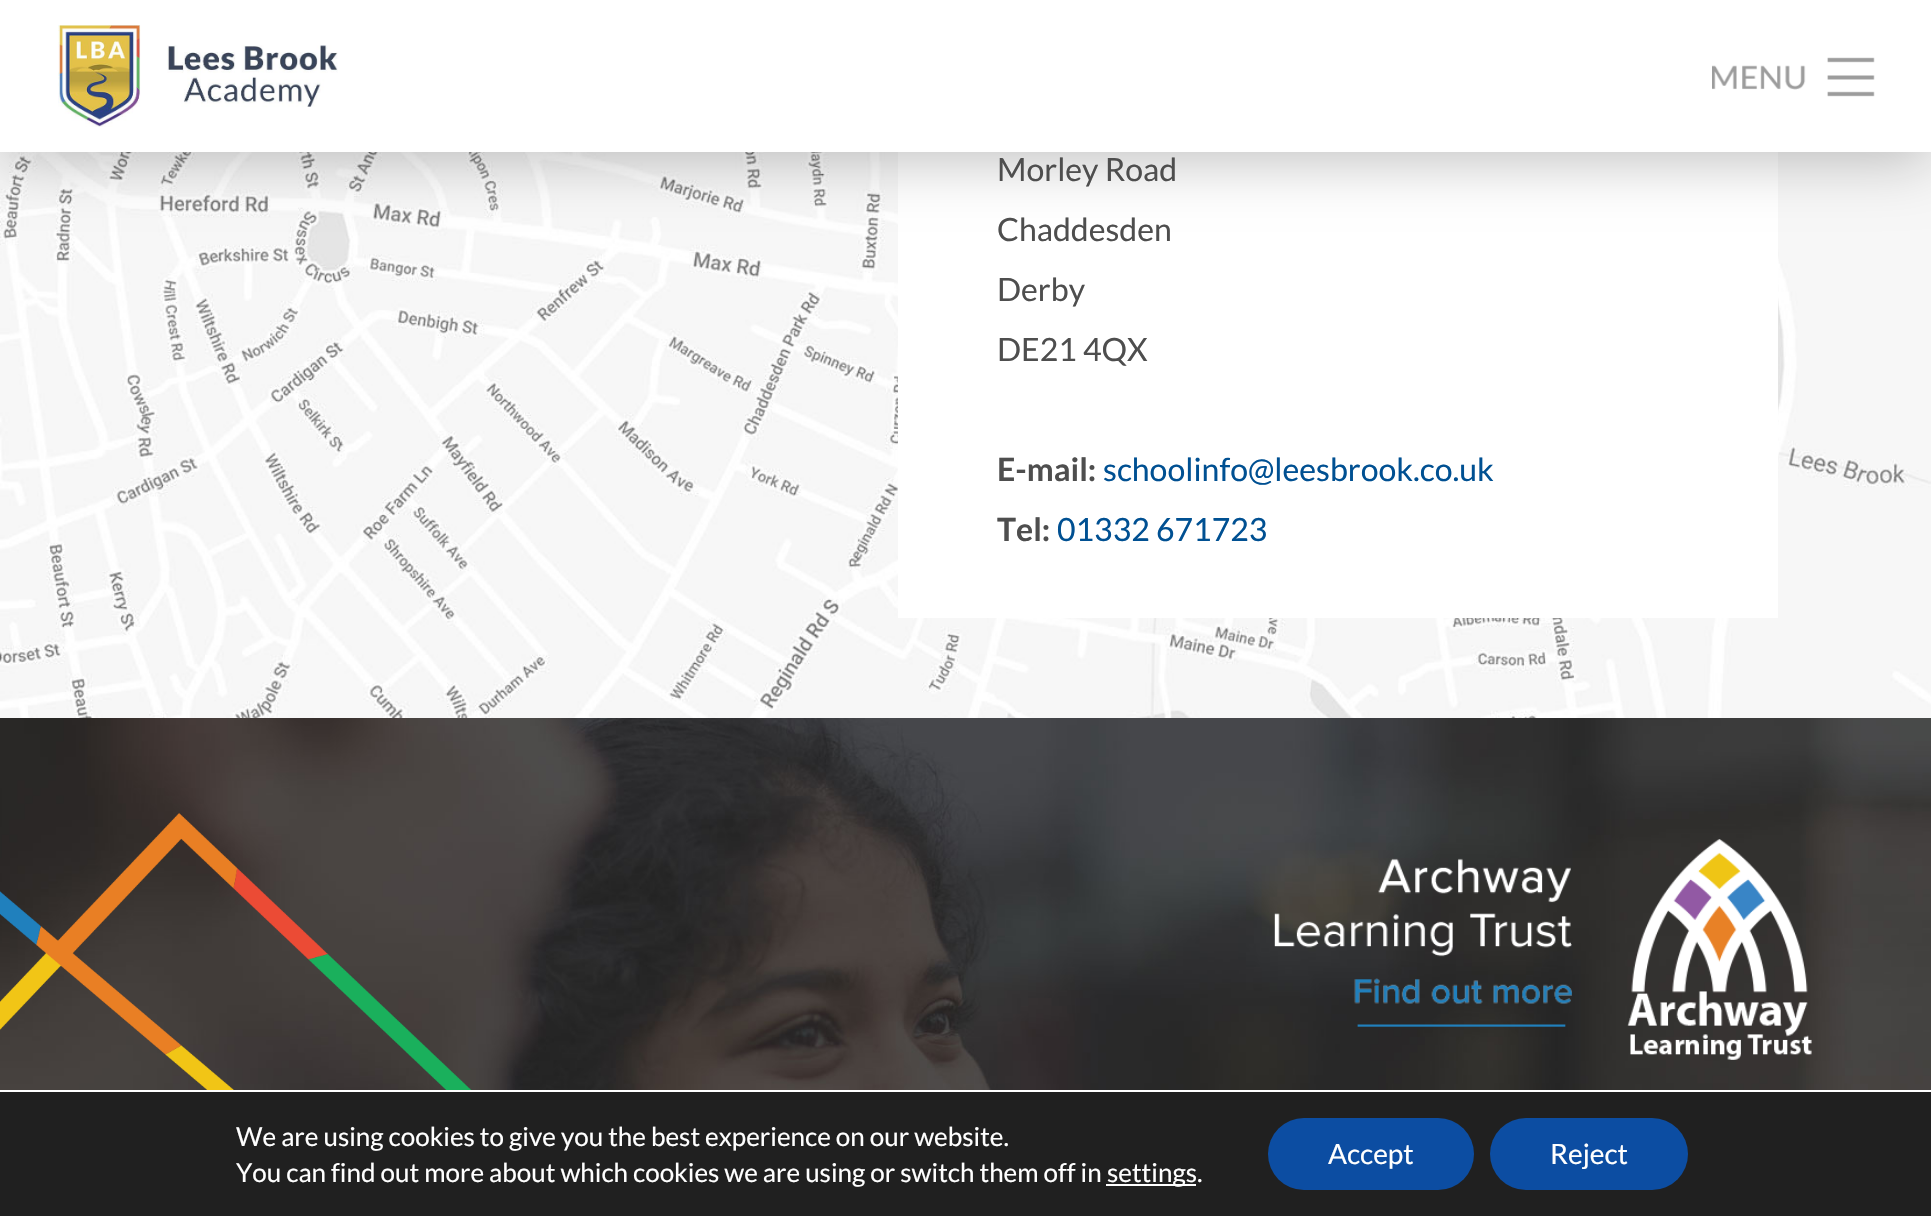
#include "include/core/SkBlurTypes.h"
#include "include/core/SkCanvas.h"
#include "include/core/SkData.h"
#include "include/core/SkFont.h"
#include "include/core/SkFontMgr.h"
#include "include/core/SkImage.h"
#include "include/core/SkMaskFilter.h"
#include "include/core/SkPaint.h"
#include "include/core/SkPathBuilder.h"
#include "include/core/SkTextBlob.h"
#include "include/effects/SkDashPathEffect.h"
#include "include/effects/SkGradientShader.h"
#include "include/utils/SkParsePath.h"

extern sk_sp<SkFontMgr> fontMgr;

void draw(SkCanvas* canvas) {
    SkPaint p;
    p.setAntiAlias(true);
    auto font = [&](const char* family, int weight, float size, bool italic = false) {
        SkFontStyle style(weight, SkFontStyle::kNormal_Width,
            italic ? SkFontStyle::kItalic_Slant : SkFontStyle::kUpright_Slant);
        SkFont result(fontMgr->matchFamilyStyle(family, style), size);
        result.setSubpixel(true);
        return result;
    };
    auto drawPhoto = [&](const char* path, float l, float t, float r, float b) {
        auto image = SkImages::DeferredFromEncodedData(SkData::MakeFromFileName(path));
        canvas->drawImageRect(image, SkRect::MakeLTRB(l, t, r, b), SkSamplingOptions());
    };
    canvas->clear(0xFFFFFFFF);
    drawPhoto("media/3.png", 0, 152, 1931, 718);
    p.setColor(0xFFFFFFFF);
    canvas->drawRect(SkRect::MakeLTRB(898, 152, 1778, 618), p);
    p.setColor(0x40000000);
    p.setMaskFilter(SkMaskFilter::MakeBlur(kNormal_SkBlurStyle, 30));
    canvas->drawRect(SkRect::MakeLTRB(0, 8, 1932, 160), p);
    p.setMaskFilter(nullptr);
    p.setColor(0xFFFFFFFF);
    canvas->drawRect(SkRect::MakeLTRB(0, 0, 1931, 152), p);
    drawPhoto("media/1.png", 1712, 57, 1875, 97);
    drawPhoto("media/2.png", 58, 25, 338, 127);
    auto font1 = font("Lato", 400, 32);
    p.setColor(0xFF4E4E4E);
    {
        const struct { const char* s; float x, y; } items[] = {
            {"Morley Road", 997, 181},
            {"Chaddesden", 997, 241},
            {"Derby", 997, 301},
            {"DE21 4QX", 997, 361},
        };
        for (auto [s, x, y] : items) {
            canvas->drawString(s, x, y, font1, p);
        }
    }
    auto font2 = font("Lato", 700, 32);
    canvas->drawString("E-mail:", 997, 481, font2, p);
    p.setColor(0xFF005092);
    canvas->drawString("schoolinfo@leesbrook.co.uk", 1103, 481, font1, p);
    p.setColor(0xFF4E4E4E);
    canvas->drawString("Tel:", 997, 541, font2, p);
    p.setColor(0xFF005092);
    canvas->drawString("01332 671723", 1057, 541, font1, p);
    drawPhoto("media/4.png", 0, 718, 1931, 1090);
    drawPhoto("media/5.png", 1274, 839, 1812, 1060);
    p.setColor(0xFF202020);
    canvas->drawRect(SkRect::MakeLTRB(0, 1092, 1931, 1216), p);
    auto font3 = font("Lato", 400, 26);
    p.setColor(0xFFFFFFFF);
    canvas->drawString("We are using cookies to give you the best experience on our website.", 236, 1146, font3, p);
    canvas->drawString("You can find out more about which cookies we are using or switch them off in", 236, 1182, font3, p);
    canvas->drawRect(SkRect::MakeLTRB(1106, 1184, 1196, 1186), p);
    canvas->drawString("settings.", 1107, 1182, font3, p);
    p.setColor(0xFF0C4DA2);
    canvas->drawRoundRect(SkRect::MakeLTRB(1268, 1118, 1474, 1190), 36, 36, p);
    auto font4 = font("Lato", 400, 28);
    p.setColor(0xFFFFFFFF);
    canvas->drawString("Accept", 1328, 1164, font4, p);
    p.setColor(0xFF0C4DA2);
    canvas->drawRoundRect(SkRect::MakeLTRB(1490, 1118, 1688, 1190), 36, 36, p);
    p.setColor(0xFFFFFFFF);
    canvas->drawString("Reject", 1550, 1164, font4, p);
}
